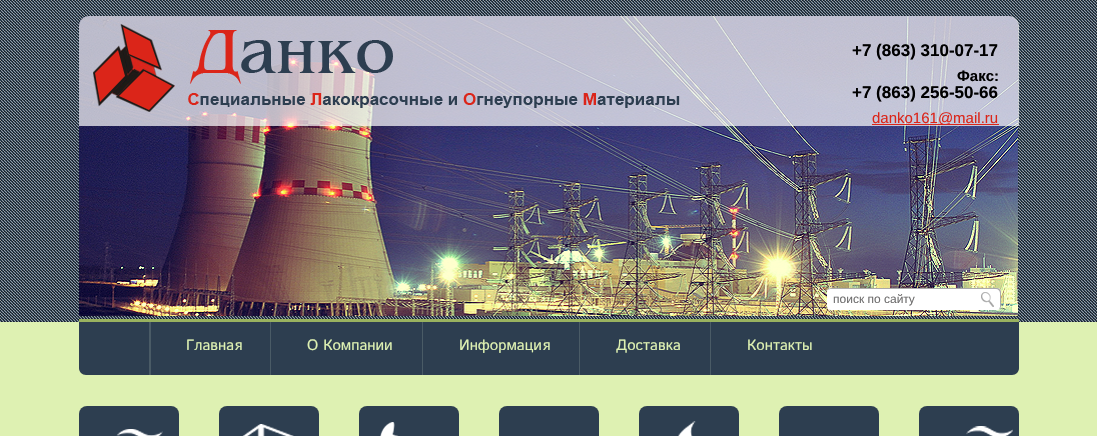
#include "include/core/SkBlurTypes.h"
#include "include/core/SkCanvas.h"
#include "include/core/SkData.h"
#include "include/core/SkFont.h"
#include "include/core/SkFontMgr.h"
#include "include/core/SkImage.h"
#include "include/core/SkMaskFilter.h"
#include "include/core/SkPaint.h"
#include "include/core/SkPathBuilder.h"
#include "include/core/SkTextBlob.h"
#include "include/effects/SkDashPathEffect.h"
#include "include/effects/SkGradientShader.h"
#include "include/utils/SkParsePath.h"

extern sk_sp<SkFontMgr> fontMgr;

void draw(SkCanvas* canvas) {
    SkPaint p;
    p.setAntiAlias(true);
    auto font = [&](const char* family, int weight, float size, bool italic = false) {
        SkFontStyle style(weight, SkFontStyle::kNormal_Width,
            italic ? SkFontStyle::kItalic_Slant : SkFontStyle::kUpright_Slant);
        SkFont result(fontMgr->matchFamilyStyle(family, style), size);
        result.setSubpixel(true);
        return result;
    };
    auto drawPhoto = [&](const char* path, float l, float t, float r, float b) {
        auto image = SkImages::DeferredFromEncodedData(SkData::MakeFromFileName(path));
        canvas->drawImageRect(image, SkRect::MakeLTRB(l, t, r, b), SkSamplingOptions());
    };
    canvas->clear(0xFFDEF1B2);
    drawPhoto("media/1.png", 0, 0, 1097, 322);
    drawPhoto("media/2.png", 79, 16, 1018, 316);
    p.setColor(0xFF99B25F);
    canvas->drawRect(SkRect::MakeLTRB(79, 319, 1019, 322), p);
    p.setColor(0xB3FFFFFF);
    canvas->drawPath(SkPathBuilder().moveTo(89, 16).lineTo(1009, 16).cubicTo(1014.5f, 16, 1019, 20.5f, 1019, 26).lineTo(1019, 126).lineTo(79, 126).lineTo(79, 26).cubicTo(79, 20.5f, 83.5f, 16, 89, 16).close().detach(), p);
    drawPhoto("media/3.png", 93, 24, 680, 112);
    auto font1 = font("Liberation Sans", 700, 17);
    p.setColor(0xFF000000);
    canvas->drawString("+7 (863) 310-07-17", 852, 56, font1, p);
    auto font2 = font("Liberation Sans", 700, 15);
    canvas->drawString("Факс:", 957, 81, font2, p);
    canvas->drawString("+7 (863) 256-50-66", 852, 98, font1, p);
    p.setColor(0xFFDB2519);
    canvas->drawRect(SkRect::MakeLTRB(872, 124, 999, 125), p);
    auto font3 = font("Liberation Sans", 400, 15);
    canvas->drawString("danko161@mail.ru", 872, 123, font3, p);
    p.setColor(0xFFFFFFFF);
    canvas->drawRoundRect(SkRect::MakeLTRB(827, 288, 1001, 310), 4, 4, p);
    p.setColor(0xFFAAA9A9);
    canvas->drawPath(SkPathBuilder().moveTo(830, 289).lineTo(996, 289).cubicTo(998, 289, 1000, 291, 1000, 293).lineTo(1000, 307).lineTo(999, 309).cubicTo(1000, 309, 1001, 307, 1001, 306).lineTo(1001, 292).cubicTo(1001, 290, 999, 288, 997, 288).lineTo(831, 288).cubicTo(830, 288, 828, 289, 828, 290).close().detach(), p);
    auto font4 = font("Liberation Sans", 400, 12);
    p.setColor(0xFF6F6E6E);
    canvas->drawString("поиск по сайту", 833, 303, font4, p);
    drawPhoto("media/4.png", 981, 292, 994, 307);
    p.setColor(0xFF2D3E50);
    canvas->drawPath(SkPathBuilder().moveTo(79, 322).lineTo(1019, 322).lineTo(1019, 368).cubicTo(1019, 372, 1016, 375, 1012, 375).lineTo(86, 375).cubicTo(82, 375, 79, 372, 79, 368).close().detach(), p);
    p.setColor(0xFF4A5B66);
    canvas->drawRect(SkRect::MakeLTRB(149, 322, 151, 375), p);
    auto font5 = font("Istok Web", 400, 15);
    p.setColor(0xFFDEF1B2);
    canvas->drawString("Главная", 186, 350, font5, p);
    p.setColor(0xFF4A5B66);
    canvas->drawRect(SkRect::MakeLTRB(270, 322, 271, 375), p);
    p.setColor(0xFFDEF1B2);
    canvas->drawString("О Компании", 307, 350, font5, p);
    p.setColor(0xFF4A5B66);
    canvas->drawRect(SkRect::MakeLTRB(422, 322, 423, 375), p);
    p.setColor(0xFFDEF1B2);
    canvas->drawString("Информация", 459, 350, font5, p);
    p.setColor(0xFF4A5B66);
    canvas->drawRect(SkRect::MakeLTRB(579, 322, 580, 375), p);
    p.setColor(0xFFDEF1B2);
    canvas->drawString("Доставка", 616, 350, font5, p);
    p.setColor(0xFF4A5B66);
    canvas->drawRect(SkRect::MakeLTRB(710, 322, 711, 375), p);
    p.setColor(0xFFDEF1B2);
    canvas->drawString("Контакты", 747, 350, font5, p);
    p.setColor(0xFF2D3E50);
    canvas->drawRoundRect(SkRect::MakeLTRB(79, 406, 179, 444), 8, 8, p);
    drawPhoto("media/5.png", 116, 429, 163, 436);
    canvas->drawRoundRect(SkRect::MakeLTRB(219, 406, 319, 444), 8, 8, p);
    drawPhoto("media/6.png", 242, 424, 294, 436);
    canvas->drawRoundRect(SkRect::MakeLTRB(359, 406, 459, 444), 8, 8, p);
    drawPhoto("media/7.png", 380, 422, 399, 436);
    canvas->drawRoundRect(SkRect::MakeLTRB(499, 406, 599, 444), 8, 8, p);
    canvas->drawRoundRect(SkRect::MakeLTRB(639, 406, 739, 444), 8, 8, p);
    drawPhoto("media/8.png", 678, 421, 696, 436);
    canvas->drawRoundRect(SkRect::MakeLTRB(779, 406, 879, 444), 8, 8, p);
    canvas->drawRoundRect(SkRect::MakeLTRB(919, 406, 1019, 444), 8, 8, p);
    drawPhoto("media/9.png", 966, 426, 1013, 436);
}
